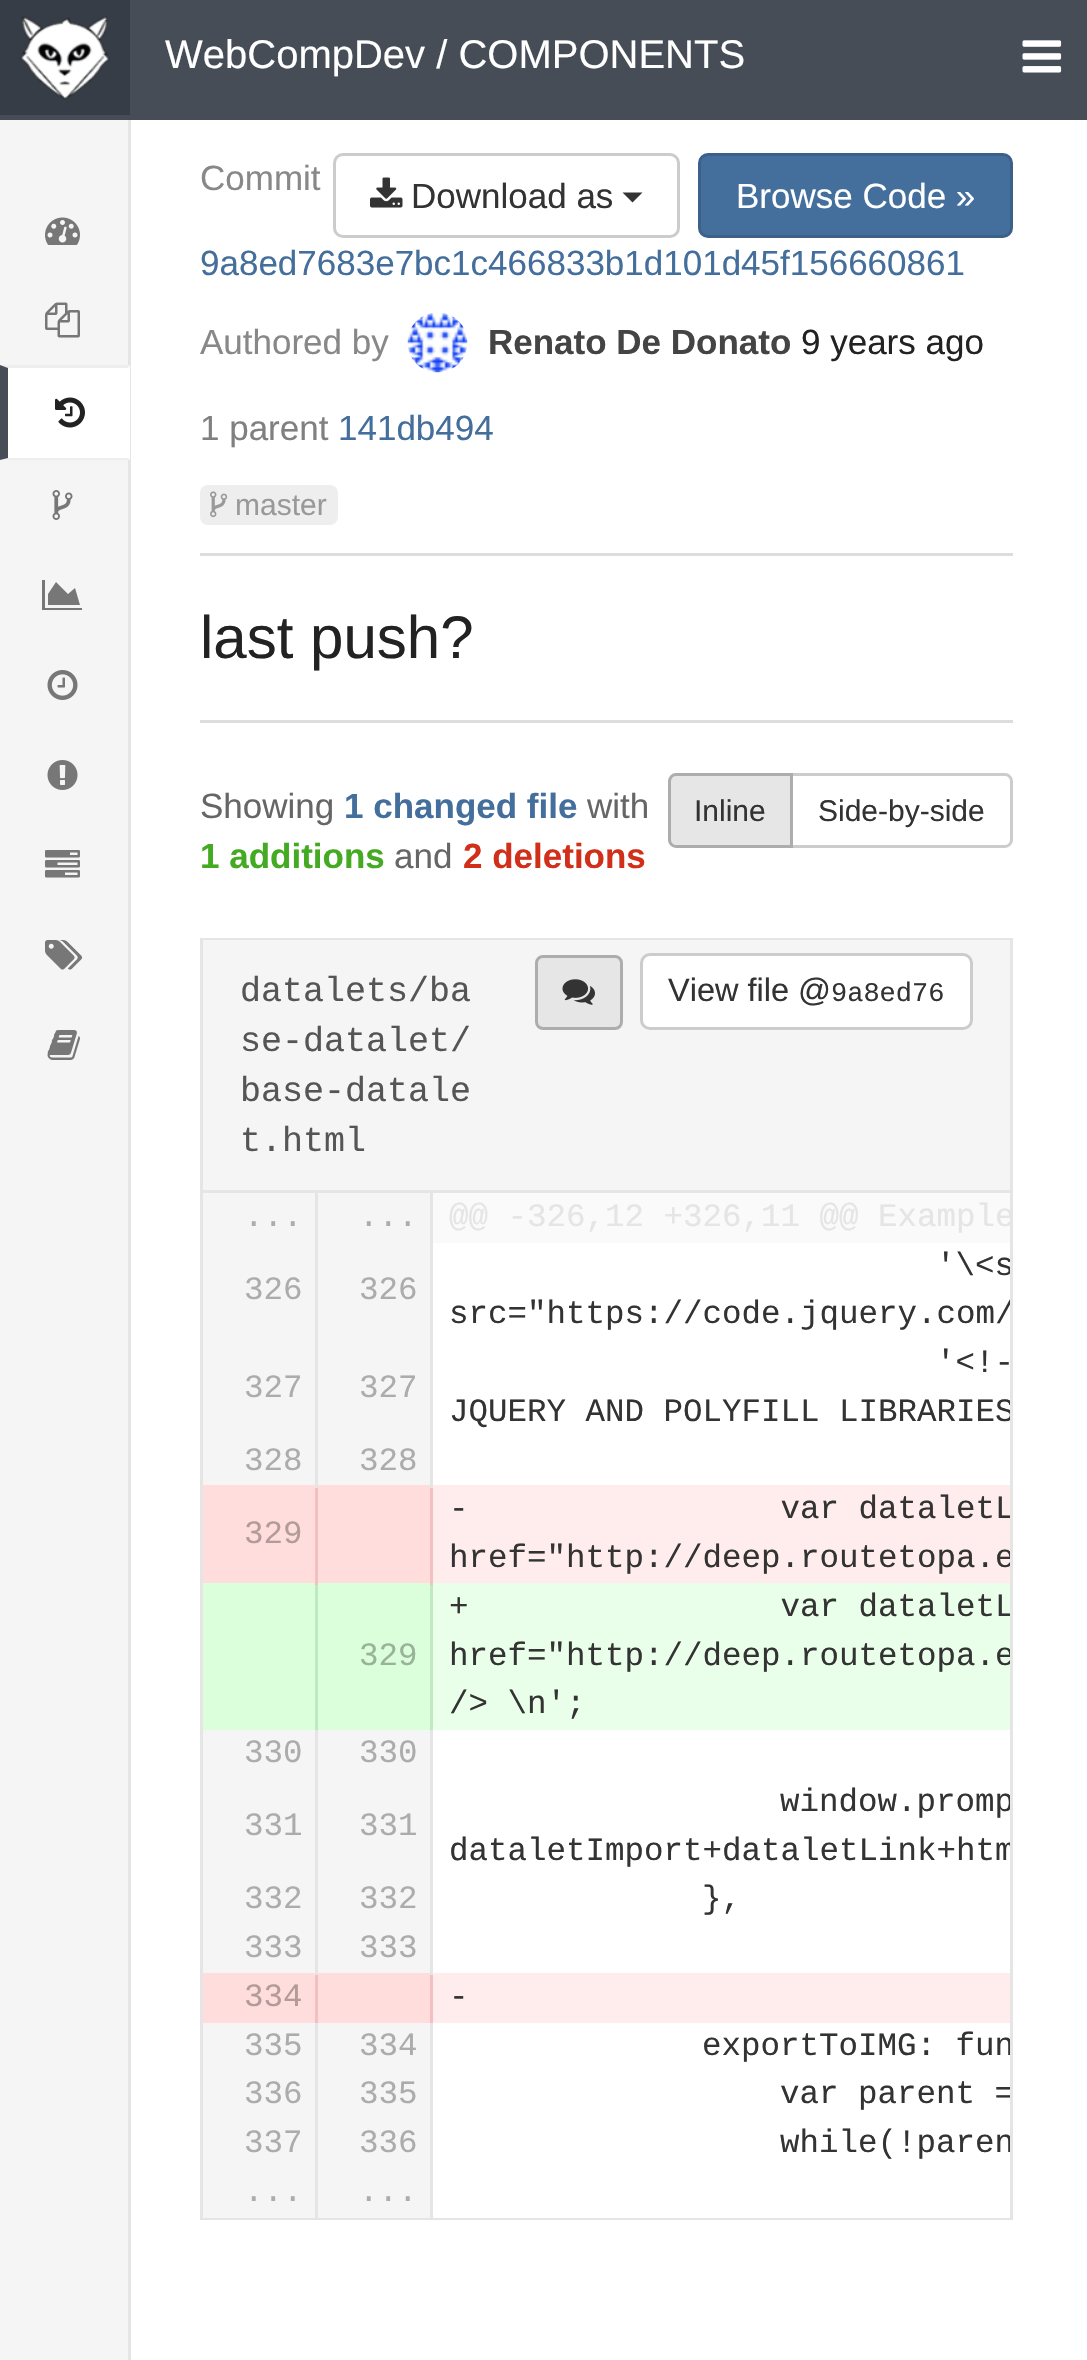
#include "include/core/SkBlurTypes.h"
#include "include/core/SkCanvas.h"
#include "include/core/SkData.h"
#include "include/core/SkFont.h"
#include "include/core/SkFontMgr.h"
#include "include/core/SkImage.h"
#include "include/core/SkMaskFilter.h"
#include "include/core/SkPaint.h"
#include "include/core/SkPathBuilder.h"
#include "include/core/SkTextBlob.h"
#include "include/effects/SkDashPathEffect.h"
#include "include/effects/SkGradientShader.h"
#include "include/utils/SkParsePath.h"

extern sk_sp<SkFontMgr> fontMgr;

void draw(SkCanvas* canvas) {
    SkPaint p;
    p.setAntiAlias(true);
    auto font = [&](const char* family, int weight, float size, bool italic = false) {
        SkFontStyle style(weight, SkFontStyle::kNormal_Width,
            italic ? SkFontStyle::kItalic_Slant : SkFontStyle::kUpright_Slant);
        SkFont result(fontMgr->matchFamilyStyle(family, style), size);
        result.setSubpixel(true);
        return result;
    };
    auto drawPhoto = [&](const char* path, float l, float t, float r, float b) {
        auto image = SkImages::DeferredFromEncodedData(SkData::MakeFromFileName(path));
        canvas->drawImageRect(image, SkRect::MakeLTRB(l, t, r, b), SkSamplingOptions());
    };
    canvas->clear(0xFFFFFFFF);
    p.setColor(0xFF474D57);
    canvas->drawRect(SkRect::MakeLTRB(0, 0, 1087, 120), p);
    p.setColor(0xFF373D47);
    canvas->drawRect(SkRect::MakeLTRB(0, 0, 130, 115), p);
    drawPhoto("media/1.png", 20, 16, 110, 100);
    auto font1 = font("Liberation Sans", 400, 40);
    p.setColor(0xFFFFFFFF);
    canvas->drawString("WebCompDev / COMPONENTS", 165, 68, font1, p);
    drawPhoto("media/2.png", 1022, 40, 1062, 73);
    p.setColor(0xFFF5F5F5);
    canvas->drawRect(SkRect::MakeLTRB(0, 120, 128, 2360), p);
    p.setColor(0xFFE5E5E5);
    canvas->drawRect(SkRect::MakeLTRB(128, 120, 131, 2360), p);
    drawPhoto("media/3.png", 45, 217, 80, 245);
    drawPhoto("media/4.png", 45, 302, 80, 338);
    p.setColor(0xFFFFFFFF);
    canvas->drawRect(SkRect::MakeLTRB(0, 365, 130, 460), p);
    p.setColor(0xFFEEEEEE);
    canvas->drawPath(SkPathBuilder().moveTo(0, 365).lineTo(130, 365).lineTo(128, 368).lineTo(8, 368).close().detach(), p);
    canvas->drawPath(SkPathBuilder().moveTo(130, 460).lineTo(0, 460).lineTo(8, 458).lineTo(128, 458).close().detach(), p);
    p.setColor(0xFF474D57);
    canvas->drawPath(SkPathBuilder().moveTo(0, 460).lineTo(0, 365).lineTo(8, 368).lineTo(8, 458).close().detach(), p);
    drawPhoto("media/5.png", 55, 397, 85, 428);
    drawPhoto("media/6.png", 52, 490, 73, 520);
    p.setColor(0xFF777777);
    canvas->drawPath(SkPathBuilder().moveTo(82, 608).lineTo(82, 610).lineTo(42, 610).lineTo(42, 580).lineTo(45, 580).lineTo(45, 608).close().moveTo(75, 588).lineTo(80, 605).lineTo(48, 605).lineTo(48, 594).lineTo(56, 582).lineTo(68, 594).close().detach(), p);
    drawPhoto("media/7.png", 47, 670, 78, 700);
    drawPhoto("media/8.png", 47, 760, 78, 790);
    drawPhoto("media/9.png", 45, 850, 80, 878);
    drawPhoto("media/10.png", 45, 940, 83, 970);
    drawPhoto("media/11.png", 47, 1030, 80, 1060);
    auto font2 = font("Liberation Sans", 400, 35);
    p.setColor(0xFF888888);
    canvas->drawString("Commit", 200, 190, font2, p);
    p.setColor(0xFF446E9B);
    canvas->drawString("9a8ed7683e7bc1c466833b1d101d45f156660861", 200, 275, font2, p);
    p.setStyle(SkPaint::kStroke_Style);
    p.setStrokeWidth(3);
    p.setColor(0xFFCCCCCC);
    canvas->drawRoundRect(SkRect::MakeLTRB(334.5f, 154.5f, 678.5f, 236.5f), 8.5f, 8.5f, p);
    drawPhoto("media/12.png", 370, 177, 403, 208);
    p.setStyle(SkPaint::kFill_Style);
    p.setColor(0xFF333333);
    canvas->drawString("Download as", 411, 208, font2, p);
    canvas->drawPath(SkPathBuilder().moveTo(622.5f, 192.5f).lineTo(642.5f, 192.5f).lineTo(632.5f, 202.5f).close().detach(), p);
    p.setColor(0xFF446E9B);
    canvas->drawRoundRect(SkRect::MakeLTRB(699.5f, 154.5f, 1011.5f, 236.5f), 8.5f, 8.5f, p);
    p.setStyle(SkPaint::kStroke_Style);
    p.setColor(0xFF3C6189);
    canvas->drawRoundRect(SkRect::MakeLTRB(699.5f, 154.5f, 1011.5f, 236.5f), 8.5f, 8.5f, p);
    p.setStyle(SkPaint::kFill_Style);
    p.setColor(0xFFFFFFFF);
    canvas->drawString("Browse Code »", 736, 208, font2, p);
    p.setColor(0xFF888888);
    canvas->drawString("Authored by", 200, 354, font2, p);
    drawPhoto("media/13.png", 407, 313, 468, 373);
    auto font3 = font("Liberation Sans", 700, 35);
    p.setColor(0xFF444444);
    canvas->drawString("Renato De Donato", 488, 354, font3, p);
    p.setColor(0xFF222222);
    canvas->drawString("9 years ago", 801, 354, font2, p);
    p.setColor(0xFF808080);
    canvas->drawString("1 parent", 200, 440, font2, p);
    p.setColor(0xFF446E9B);
    canvas->drawString("141db494", 338, 440, font2, p);
    p.setColor(0xFFEEEEEE);
    canvas->drawRoundRect(SkRect::MakeLTRB(200, 485, 338, 525), 8, 8, p);
    drawPhoto("media/14.png", 210, 491, 228, 518);
    auto font4 = font("Liberation Sans", 400, 30);
    p.setColor(0xFF999999);
    canvas->drawString("master", 235, 515, font4, p);
    p.setColor(0xFFDDDDDD);
    canvas->drawRect(SkRect::MakeLTRB(200, 553, 1013, 556), p);
    canvas->drawRect(SkRect::MakeLTRB(200, 720, 1013, 723), p);
    auto font5 = font("Liberation Sans", 400, 60);
    p.setColor(0xFF222222);
    canvas->drawString("last push?", 200, 658, font5, p);
    p.setColor(0xFF666666);
    canvas->drawString("Showing", 200, 818, font2, p);
    p.setColor(0xFF446E9B);
    canvas->drawString("1 changed file", 344, 818, font3, p);
    p.setColor(0xFF666666);
    canvas->drawString("with", 587, 818, font2, p);
    p.setColor(0xFF44AA22);
    canvas->drawString("1 additions", 200, 868, font3, p);
    p.setColor(0xFF666666);
    canvas->drawString("and", 394, 868, font2, p);
    p.setColor(0xFFD12F19);
    canvas->drawString("2 deletions", 463, 868, font3, p);
    p.setStyle(SkPaint::kStroke_Style);
    p.setColor(0xFFCCCCCC);
    canvas->drawPath(SkPathBuilder().moveTo(791.5f, 774.5f).lineTo(1005, 774.5f).cubicTo(1008.5f, 774.5f, 1011.5f, 777.5f, 1011.5f, 781).lineTo(1011.5f, 840).cubicTo(1011.5f, 843.5f, 1008.5f, 846.5f, 1005, 846.5f).lineTo(791.5f, 846.5f).close().detach(), p);
    p.setStyle(SkPaint::kFill_Style);
    p.setColor(0xFFE6E6E6);
    canvas->drawPath(SkPathBuilder().moveTo(676, 774.5f).lineTo(791.5f, 774.5f).lineTo(791.5f, 846.5f).lineTo(676, 846.5f).cubicTo(672.5f, 846.5f, 669.5f, 843.5f, 669.5f, 840).lineTo(669.5f, 781).cubicTo(669.5f, 777.5f, 672.5f, 774.5f, 676, 774.5f).close().detach(), p);
    p.setStyle(SkPaint::kStroke_Style);
    p.setColor(0xFFADADAD);
    canvas->drawPath(SkPathBuilder().moveTo(676, 774.5f).lineTo(791.5f, 774.5f).lineTo(791.5f, 846.5f).lineTo(676, 846.5f).cubicTo(672.5f, 846.5f, 669.5f, 843.5f, 669.5f, 840).lineTo(669.5f, 781).cubicTo(669.5f, 777.5f, 672.5f, 774.5f, 676, 774.5f).close().detach(), p);
    p.setStyle(SkPaint::kFill_Style);
    p.setColor(0xFF333333);
    canvas->drawString("Inline", 694, 821, font4, p);
    canvas->drawString("Side-by-side", 818, 821, font4, p);
    p.setStyle(SkPaint::kStroke_Style);
    p.setColor(0xFFE5E5E5);
    canvas->drawRect(SkRect::MakeLTRB(201.5f, 939.5f, 1011.5f, 2218.5f), p);
    p.setStyle(SkPaint::kFill_Style);
    p.setColor(0xFFF5F5F5);
    canvas->drawRect(SkRect::MakeLTRB(203, 940, 1010, 1190), p);
    p.setColor(0xFFE5E5E5);
    canvas->drawRect(SkRect::MakeLTRB(203, 1190, 1010, 1193), p);
    auto font6 = font("Liberation Mono", 400, 35);
    p.setColor(0xFF555555);
    {
        const struct { const char* s; float x, y; } items[] = {
            {"datalets/ba", 240, 1001},
            {"se-datalet/", 240, 1051},
            {"base-datale", 240, 1101},
            {"t.html", 240, 1151},
        };
        for (auto [s, x, y] : items) {
            canvas->drawString(s, x, y, font6, p);
        }
    }
    p.setColor(0xFFE6E6E6);
    canvas->drawRoundRect(SkRect::MakeLTRB(536.5f, 956.5f, 621.5f, 1028.5f), 6.5f, 6.5f, p);
    p.setStyle(SkPaint::kStroke_Style);
    p.setColor(0xFFADADAD);
    canvas->drawRoundRect(SkRect::MakeLTRB(536.5f, 956.5f, 621.5f, 1028.5f), 6.5f, 6.5f, p);
    drawPhoto("media/15.png", 562, 979, 595, 1005);
    p.setStyle(SkPaint::kFill_Style);
    p.setColor(0xFFFFFFFF);
    canvas->drawRoundRect(SkRect::MakeLTRB(641.5f, 954.5f, 971.5f, 1028.5f), 8.5f, 8.5f, p);
    p.setStyle(SkPaint::kStroke_Style);
    p.setColor(0xFFCCCCCC);
    canvas->drawRoundRect(SkRect::MakeLTRB(641.5f, 954.5f, 971.5f, 1028.5f), 8.5f, 8.5f, p);
    auto font7 = font("Liberation Sans", 400, 32.5f);
    p.setStyle(SkPaint::kFill_Style);
    p.setColor(0xFF333333);
    canvas->drawString("View file @", 668, 1001, font7, p);
    auto font8 = font("Liberation Mono", 400, 27);
    canvas->drawString("9a8ed76", 831, 1001, font8, p);
    p.setColor(0xFFFFFFFF);
    canvas->drawRect(SkRect::MakeLTRB(433, 2217, 1010, 2218), p);
    p.setColor(0xFFF5F5F5);
    canvas->drawRect(SkRect::MakeLTRB(203, 1193, 315, 1485), p);
    auto font9 = font("Liberation Mono", 400, 32.5f);
    p.setColor(0xFFACACAC);
    canvas->drawString("...", 244, 1226, font9, p);
    p.setColor(0xFFF5F5F5);
    canvas->drawRect(SkRect::MakeLTRB(318, 1193, 430, 1485), p);
    p.setColor(0xFFACACAC);
    canvas->drawString("...", 359, 1226, font9, p);
    p.setColor(0xFFFAFAFA);
    canvas->drawRect(SkRect::MakeLTRB(433, 1193, 1010, 1243), p);
    canvas->save();
    canvas->clipRect(SkRect::MakeLTRB(203, 1193, 1010, 2218));
    p.setColor(0xFFE5E5E5);
    canvas->drawString("@@ -326,12 +326,11 @@ Example", 449, 1226, font9, p);
    canvas->restore();
    p.setColor(0xFFACACAC);
    canvas->drawString("326", 244, 1299, font9, p);
    canvas->drawString("326", 359, 1299, font9, p);
    canvas->save();
    canvas->clipRect(SkRect::MakeLTRB(203, 1193, 1010, 2218));
    p.setColor(0xFF333333);
    canvas->drawString("'\\<s", 936, 1275, font9, p);
    canvas->drawString("src=\"https://code.jquery.com/", 449, 1323, font9, p);
    canvas->restore();
    p.setColor(0xFFACACAC);
    canvas->drawString("327", 244, 1397, font9, p);
    canvas->drawString("327", 359, 1397, font9, p);
    p.setColor(0xFF333333);
    canvas->drawString("'<!-", 936, 1372, font9, p);
    canvas->save();
    canvas->clipRect(SkRect::MakeLTRB(203, 1193, 1010, 2218));
    canvas->drawString("JQUERY AND POLYFILL LIBRARIES", 449, 1421, font9, p);
    canvas->restore();
    {
        const struct { float l, t, r, b; SkColor color; } items[] = {
            {315, 2020, 318, 2218, 0xFFE5E5E5},
            {315, 1973, 318, 2023, 0xFFF1C0C0},
            {315, 1728, 318, 1975, 0xFFE5E5E5},
            {315, 1583, 318, 1730, 0xFFC1E9C1},
            {315, 1485, 318, 1585, 0xFFF1C0C0},
            {315, 1193, 318, 1488, 0xFFE5E5E5},
        };
        for (auto [l, t, r, b, color] : items) {
            p.setColor(color);
            canvas->drawRect(SkRect::MakeLTRB(l, t, r, b), p);
        }
    }
    p.setColor(0xFFACACAC);
    canvas->drawString("328", 244, 1470, font9, p);
    {
        const struct { float l, t, r, b; SkColor color; } items[] = {
            {430, 2020, 433, 2218, 0xFFE5E5E5},
            {430, 1973, 433, 2023, 0xFFF1C0C0},
            {430, 1728, 433, 1975, 0xFFE5E5E5},
            {430, 1583, 433, 1730, 0xFFC1E9C1},
            {430, 1485, 433, 1585, 0xFFF1C0C0},
            {430, 1193, 433, 1488, 0xFFE5E5E5},
        };
        for (auto [l, t, r, b, color] : items) {
            p.setColor(color);
            canvas->drawRect(SkRect::MakeLTRB(l, t, r, b), p);
        }
    }
    p.setColor(0xFFACACAC);
    canvas->drawString("328", 359, 1470, font9, p);
    p.setColor(0xFFFFDDDD);
    canvas->drawRect(SkRect::MakeLTRB(203, 1485, 315, 1583), p);
    p.setColor(0xFFB39B9B);
    canvas->drawString("329", 244, 1543, font9, p);
    p.setColor(0xFFFFDDDD);
    canvas->drawRect(SkRect::MakeLTRB(318, 1485, 430, 1583), p);
    p.setColor(0xFFFFECEC);
    canvas->drawRect(SkRect::MakeLTRB(433, 1485, 1010, 1583), p);
    canvas->save();
    canvas->clipRect(SkRect::MakeLTRB(203, 1193, 1010, 2218));
    p.setColor(0xFF333333);
    canvas->drawString("-                var dataletL", 449, 1518, font9, p);
    canvas->drawString("href=\"http://deep.routetopa.e", 449, 1567, font9, p);
    canvas->restore();
    p.setColor(0xFFDBFFDB);
    canvas->drawRect(SkRect::MakeLTRB(203, 1583, 315, 1730), p);
    canvas->drawRect(SkRect::MakeLTRB(318, 1583, 430, 1730), p);
    p.setColor(0xFF99B399);
    canvas->drawString("329", 359, 1665, font9, p);
    p.setColor(0xFFEAFFEA);
    canvas->drawRect(SkRect::MakeLTRB(433, 1583, 1010, 1730), p);
    canvas->save();
    canvas->clipRect(SkRect::MakeLTRB(203, 1193, 1010, 2218));
    p.setColor(0xFF333333);
    canvas->drawString("+                var dataletL", 449, 1616, font9, p);
    canvas->drawString("href=\"http://deep.routetopa.e", 449, 1665, font9, p);
    canvas->restore();
    canvas->drawString("/> \\n';", 449, 1713, font9, p);
    p.setColor(0xFFF5F5F5);
    canvas->drawRect(SkRect::MakeLTRB(203, 1730, 315, 1973), p);
    p.setColor(0xFFACACAC);
    canvas->drawString("330", 244, 1762, font9, p);
    p.setColor(0xFFF5F5F5);
    canvas->drawRect(SkRect::MakeLTRB(318, 1730, 430, 1973), p);
    p.setColor(0xFFACACAC);
    {
        const struct { const char* s; float x, y; } items[] = {
            {"330", 359, 1762},
            {"331", 244, 1835},
            {"331", 359, 1835},
        };
        for (auto [s, x, y] : items) {
            canvas->drawString(s, x, y, font9, p);
        }
    }
    canvas->save();
    canvas->clipRect(SkRect::MakeLTRB(203, 1193, 1010, 2218));
    p.setColor(0xFF333333);
    canvas->drawString("window.promp", 780, 1811, font9, p);
    canvas->drawString("dataletImport+dataletLink+htm", 449, 1860, font9, p);
    canvas->restore();
    p.setColor(0xFFACACAC);
    canvas->drawString("332", 244, 1908, font9, p);
    canvas->drawString("332", 359, 1908, font9, p);
    p.setColor(0xFF333333);
    canvas->drawString("},", 702, 1908, font9, p);
    p.setColor(0xFFACACAC);
    canvas->drawString("333", 244, 1957, font9, p);
    canvas->drawString("333", 359, 1957, font9, p);
    p.setColor(0xFFFFDDDD);
    canvas->drawRect(SkRect::MakeLTRB(203, 1973, 315, 2023), p);
    p.setColor(0xFFB39B9B);
    canvas->drawString("334", 244, 2006, font9, p);
    p.setColor(0xFFFFDDDD);
    canvas->drawRect(SkRect::MakeLTRB(318, 1973, 430, 2023), p);
    p.setColor(0xFFFFECEC);
    canvas->drawRect(SkRect::MakeLTRB(433, 1973, 1010, 2023), p);
    p.setColor(0xFF333333);
    canvas->drawString("-", 449, 2006, font9, p);
    p.setColor(0xFFF5F5F5);
    canvas->drawRect(SkRect::MakeLTRB(203, 2023, 315, 2218), p);
    p.setColor(0xFFACACAC);
    canvas->drawString("335", 244, 2055, font9, p);
    p.setColor(0xFFF5F5F5);
    canvas->drawRect(SkRect::MakeLTRB(318, 2023, 430, 2218), p);
    p.setColor(0xFFACACAC);
    canvas->drawString("334", 359, 2055, font9, p);
    canvas->save();
    canvas->clipRect(SkRect::MakeLTRB(203, 1193, 1010, 2218));
    p.setColor(0xFF333333);
    canvas->drawString("exportToIMG: fun", 702, 2055, font9, p);
    canvas->restore();
    p.setColor(0xFFACACAC);
    canvas->drawString("336", 244, 2103, font9, p);
    canvas->drawString("335", 359, 2103, font9, p);
    canvas->save();
    canvas->clipRect(SkRect::MakeLTRB(203, 1193, 1010, 2218));
    p.setColor(0xFF333333);
    canvas->drawString("var parent =", 780, 2103, font9, p);
    canvas->restore();
    p.setColor(0xFFACACAC);
    canvas->drawString("337", 244, 2152, font9, p);
    canvas->drawString("336", 359, 2152, font9, p);
    canvas->save();
    canvas->clipRect(SkRect::MakeLTRB(203, 1193, 1010, 2218));
    p.setColor(0xFF333333);
    canvas->drawString("while(!paren", 780, 2152, font9, p);
    canvas->restore();
    p.setColor(0xFFACACAC);
    canvas->drawString("...", 244, 2201, font9, p);
    canvas->drawString("...", 359, 2201, font9, p);
}
